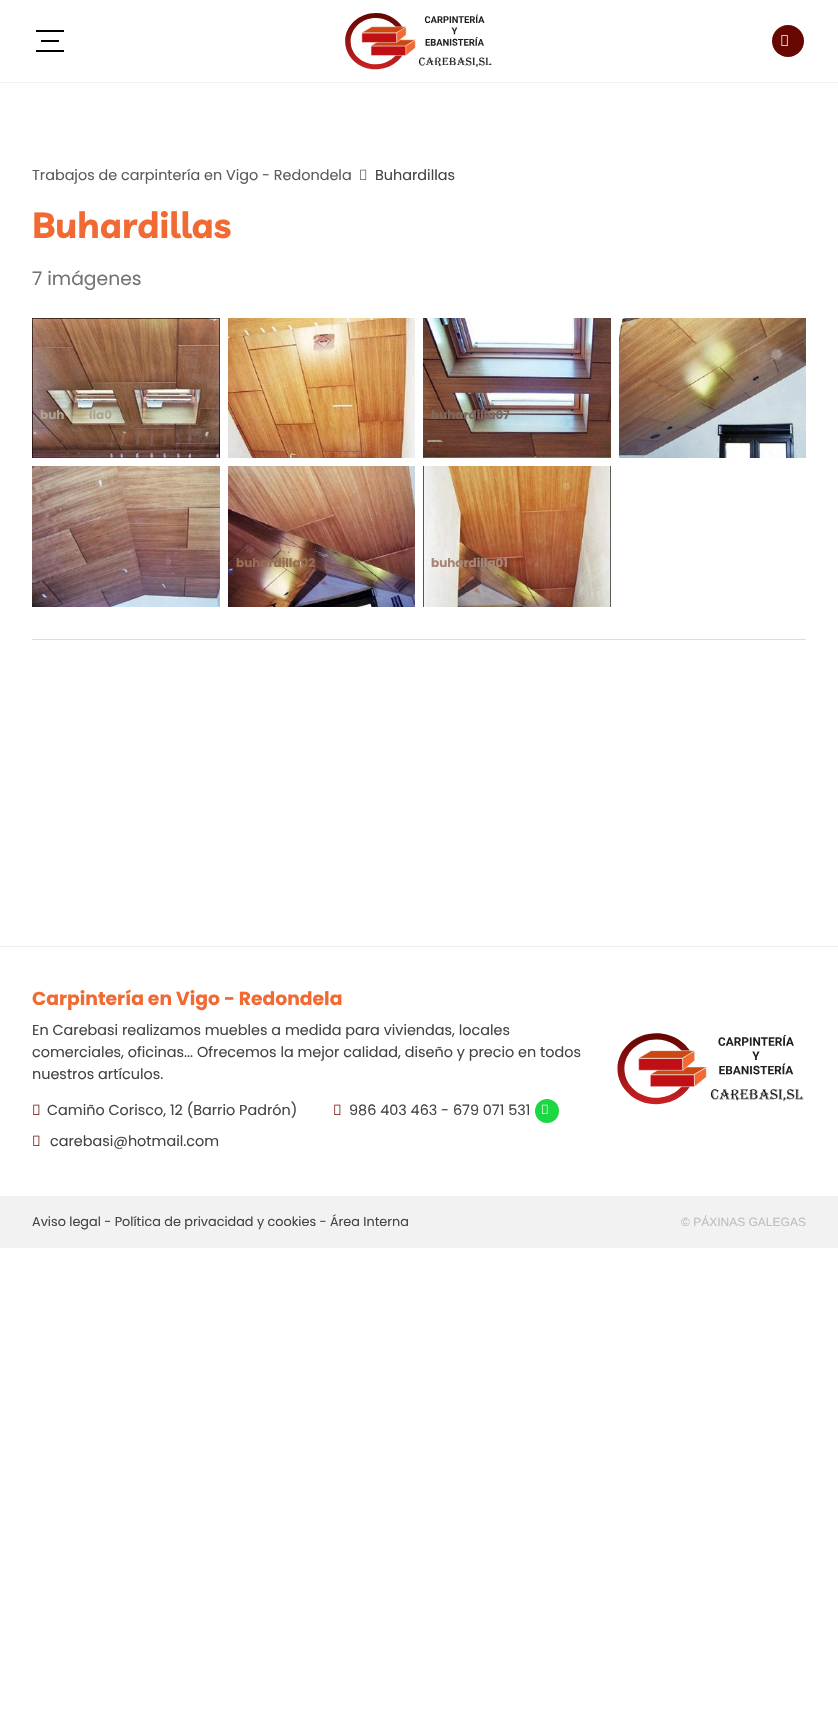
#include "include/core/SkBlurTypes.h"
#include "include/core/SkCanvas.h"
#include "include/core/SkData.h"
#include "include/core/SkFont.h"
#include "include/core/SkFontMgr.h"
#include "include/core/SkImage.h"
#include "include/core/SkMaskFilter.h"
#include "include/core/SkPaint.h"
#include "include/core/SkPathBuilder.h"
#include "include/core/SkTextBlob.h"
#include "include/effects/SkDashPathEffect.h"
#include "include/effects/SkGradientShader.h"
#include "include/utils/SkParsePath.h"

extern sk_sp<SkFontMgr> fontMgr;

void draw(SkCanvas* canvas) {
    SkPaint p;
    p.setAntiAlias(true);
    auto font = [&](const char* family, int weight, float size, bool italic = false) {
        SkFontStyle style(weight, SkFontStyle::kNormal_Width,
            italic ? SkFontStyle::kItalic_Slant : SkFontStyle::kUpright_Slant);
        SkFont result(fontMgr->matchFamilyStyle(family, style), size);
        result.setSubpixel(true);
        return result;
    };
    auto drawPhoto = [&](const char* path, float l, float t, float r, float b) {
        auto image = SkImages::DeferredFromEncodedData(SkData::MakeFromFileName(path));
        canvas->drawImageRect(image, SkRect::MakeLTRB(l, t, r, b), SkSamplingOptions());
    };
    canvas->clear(0xFFFFFFFF);
    {
        const struct { float l, t, r, b; SkColor color; } items[] = {
            {36, 30, 64, 32, 0xFF000000},
            {41, 40, 59, 42, 0xFF000000},
            {36, 50, 64, 52, 0xFF000000},
        };
        for (auto [l, t, r, b, color] : items) {
            p.setColor(color);
            canvas->drawRect(SkRect::MakeLTRB(l, t, r, b), p);
        }
    }
    drawPhoto("media/1.png", 345, 13, 492, 70);
    p.setColor(0xFF660701);
    canvas->drawCircle(788, 41, 16, p);
    drawPhoto("media/2.png", 781, 35, 788, 46);
    p.setColor(0xFFF2F2F2);
    canvas->drawRect(SkRect::MakeLTRB(0, 82, 838, 83), p);
    auto font1 = font("Poppins", 400, 14.4f);
    p.setColor(0xFF5C5C5C);
    canvas->drawString("Trabajos de carpintería en Vigo - Redondela", 32, 180, font1, p);
    drawPhoto("media/3.png", 360, 169, 367, 180);
    p.setColor(0xFF444444);
    canvas->drawString("Buhardillas", 375, 180, font1, p);
    auto font2 = font("Livvic", 700, 36);
    p.setColor(0xFFF16A33);
    canvas->drawString("Buhardillas", 32, 238, font2, p);
    auto font3 = font("Poppins", 400, 18.75f);
    p.setColor(0xFF737373);
    canvas->drawString("7 imágenes", 32, 285, font3, p);
    drawPhoto("media/4.png", 32, 318, 220, 458);
    auto font4 = font("Poppins", 700, 12);
    p.setColor(0xFFAEA48F);
    canvas->drawString("buh", 40, 419, font4, p);
    canvas->drawString("lla0", 89, 419, font4, p);
    drawPhoto("media/5.png", 228, 318, 415, 458);
    drawPhoto("media/6.png", 423, 318, 611, 458);
    p.setColor(0xFF7F695E);
    canvas->drawString("buhardilla07", 431, 419, font4, p);
    drawPhoto("media/7.png", 619, 318, 806, 458);
    drawPhoto("media/8.png", 32, 466, 220, 607);
    drawPhoto("media/9.png", 228, 466, 415, 607);
    p.setColor(0xFF966E55);
    canvas->drawString("buhardilla02", 236, 567, font4, p);
    drawPhoto("media/10.png", 423, 466, 611, 607);
    p.setColor(0xFFA98675);
    canvas->drawString("buhardilla01", 431, 567, font4, p);
    p.setColor(0xFFDDDDDD);
    canvas->drawRect(SkRect::MakeLTRB(32, 639, 806, 640), p);
    p.setColor(0xFFEEEEEE);
    canvas->drawRect(SkRect::MakeLTRB(0, 946, 838, 947), p);
    auto font5 = font("Poppins", 700, 18.75f);
    p.setColor(0xFFF16A33);
    canvas->drawString("Carpintería en Vigo - Redondela", 32, 1005, font5, p);
    p.setColor(0xFF444444);
    {
        const struct { const char* s; float x, y; } items[] = {
            {"En Carebasi realizamos muebles a medida para viviendas, locales", 32, 1035},
            {"comerciales, oficinas... Ofrecemos la mejor calidad, diseño y precio en todos", 32, 1057},
            {"nuestros artículos.", 32, 1079},
        };
        for (auto [s, x, y] : items) {
            canvas->drawString(s, x, y, font1, p);
        }
    }
    drawPhoto("media/11.png", 33, 1104, 40, 1115);
    canvas->drawString("Camiño Corisco, 12 (Barrio Padrón)", 47, 1115, font1, p);
    drawPhoto("media/11.png", 334, 1104, 341, 1115);
    canvas->drawString("986 403 463 - 679 071 531", 349, 1115, font1, p);
    p.setColor(0xFF1BD741);
    canvas->drawCircle(547, 1111, 12, p);
    drawPhoto("media/12.png", 542, 1104, 548, 1114);
    drawPhoto("media/11.png", 33, 1135, 40, 1146);
    p.setColor(0xFF444444);
    canvas->drawString("carebasi@hotmail.com", 50, 1146, font1, p);
    drawPhoto("media/13.png", 617, 1033, 804, 1105);
    p.setColor(0xFFF2F2F2);
    canvas->drawRect(SkRect::MakeLTRB(0, 1196, 838, 1248), p);
    auto font6 = font("Poppins", 400, 12.8f);
    p.setColor(0xFF444444);
    canvas->drawString("Aviso legal - Política de privacidad y cookies - Área Interna", 32, 1226, font6, p);
    auto font7 = font("Liberation Sans", 400, 12);
    p.setColor(0xFFBDBDBD);
    canvas->drawString("© PÁXINAS GALEGAS", 681, 1226, font7, p);
}
